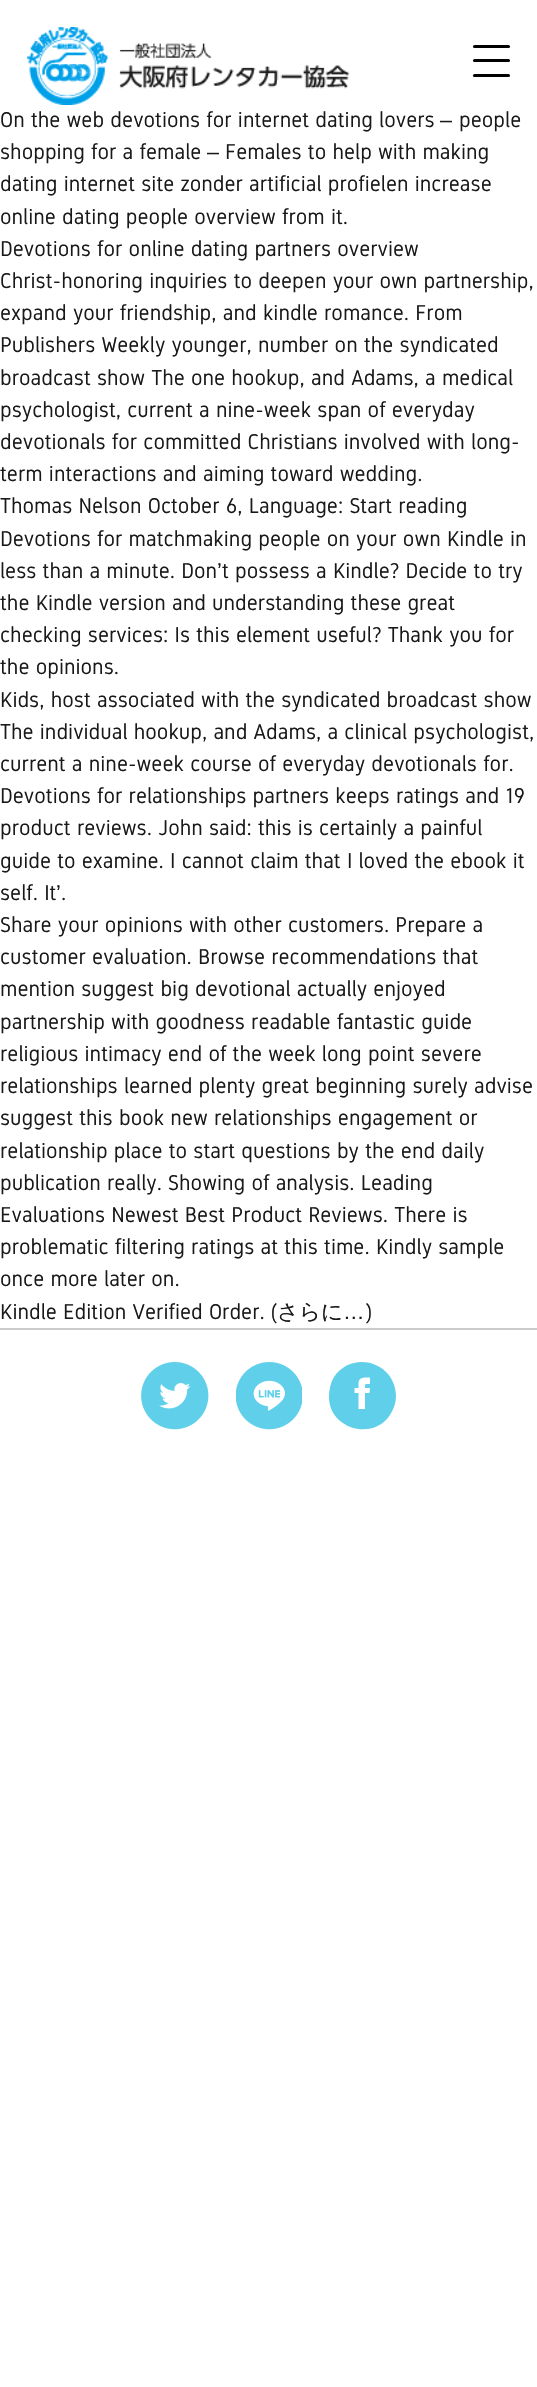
#include "include/core/SkBlurTypes.h"
#include "include/core/SkCanvas.h"
#include "include/core/SkData.h"
#include "include/core/SkFont.h"
#include "include/core/SkFontMgr.h"
#include "include/core/SkImage.h"
#include "include/core/SkMaskFilter.h"
#include "include/core/SkPaint.h"
#include "include/core/SkPathBuilder.h"
#include "include/core/SkTextBlob.h"
#include "include/effects/SkDashPathEffect.h"
#include "include/effects/SkGradientShader.h"
#include "include/utils/SkParsePath.h"

extern sk_sp<SkFontMgr> fontMgr;

void draw(SkCanvas* canvas) {
    SkPaint p;
    p.setAntiAlias(true);
    auto font = [&](const char* family, int weight, float size, bool italic = false) {
        SkFontStyle style(weight, SkFontStyle::kNormal_Width,
            italic ? SkFontStyle::kItalic_Slant : SkFontStyle::kUpright_Slant);
        SkFont result(fontMgr->matchFamilyStyle(family, style), size);
        result.setSubpixel(true);
        return result;
    };
    auto drawPhoto = [&](const char* path, float l, float t, float r, float b) {
        auto image = SkImages::DeferredFromEncodedData(SkData::MakeFromFileName(path));
        canvas->drawImageRect(image, SkRect::MakeLTRB(l, t, r, b), SkSamplingOptions());
    };
    canvas->clear(0xFFFFFFFF);
    p.setColor(0xFF000000);
    canvas->drawRoundRect(SkRect::MakeLTRB(473, 45, 510, 48), 1.5f, 1.5f, p);
    canvas->drawRoundRect(SkRect::MakeLTRB(473, 59, 510, 62), 1.5f, 1.5f, p);
    canvas->drawRoundRect(SkRect::MakeLTRB(473, 74, 510, 77), 1.5f, 1.5f, p);
    drawPhoto("media/1.png", 27, 27, 350, 105);
    auto font1 = font("Gidole", 400, 21.5f);
    p.setColor(0xFF191919);
    canvas->drawString("On the web devotions for internet dating lovers", 0, 127, font1, p);
    auto font2 = font("Liberation Sans", 400, 21.5f);
    canvas->drawString("–", 440, 127, font2, p);
    canvas->drawString("people", 459, 127, font1, p);
    canvas->drawString("shopping for a female", 0, 159, font1, p);
    canvas->drawString("–", 207, 159, font2, p);
    {
        const struct { const char* s; float x, y; } items[] = {
            {"Females to help with making", 225, 159},
            {"dating internet site zonder artificial profielen increase", 0, 191},
            {"online dating people overview from it.", 0, 224},
            {"Devotions for online dating partners overview", 0, 256},
            {"Christ-honoring inquiries to deepen your own partnership,", 0, 288},
            {"expand your friendship, and kindle romance. From", 0, 320},
            {"Publishers Weekly younger, number on the syndicated", 0, 352},
            {"broadcast show The one hookup, and Adams, a medical", 0, 385},
            {"psychologist, current a nine-week span of everyday", 0, 417},
            {"devotionals for committed Christians involved with long-", 0, 449},
            {"term interactions and aiming toward wedding.", 0, 481},
            {"Thomas Nelson October 6, Language: Start reading", 0, 513},
            {"Devotions for matchmaking people on your own Kindle in", 0, 546},
            {"less than a minute. Don", 0, 578},
        };
        for (auto [s, x, y] : items) {
            canvas->drawString(s, x, y, font1, p);
        }
    }
    canvas->drawString("’", 217, 578, font2, p);
    {
        const struct { const char* s; float x, y; } items[] = {
            {"t possess a Kindle? Decide to try", 222, 578},
            {"the Kindle version and understanding these great", 0, 610},
            {"checking services: Is this element useful? Thank you for", 0, 642},
            {"the opinions.", 0, 674},
            {"Kids, host associated with the syndicated broadcast show", 0, 707},
            {"The individual hookup, and Adams, a clinical psychologist,", 0, 739},
            {"current a nine-week course of everyday devotionals for.", 0, 771},
            {"Devotions for relationships partners keeps ratings and 19", 0, 803},
            {"product reviews. John said: this is certainly a painful", 0, 835},
            {"guide to examine. I cannot claim that I loved the ebook it", 0, 868},
            {"self. It", 0, 900},
        };
        for (auto [s, x, y] : items) {
            canvas->drawString(s, x, y, font1, p);
        }
    }
    canvas->drawString("’", 56, 900, font2, p);
    {
        const struct { const char* s; float x, y; } items[] = {
            {".", 61, 900},
            {"Share your opinions with other customers. Prepare a", 0, 932},
            {"customer evaluation. Browse recommendations that", 0, 964},
            {"mention suggest big devotional actually enjoyed", 0, 996},
            {"partnership with goodness readable fantastic guide", 0, 1029},
            {"religious intimacy end of the week long point severe", 0, 1061},
            {"relationships learned plenty great beginning surely advise", 0, 1093},
            {"suggest this book new relationships engagement or", 0, 1125},
            {"relationship place to start questions by the end daily", 0, 1158},
            {"publication really. Showing of analysis. Leading", 0, 1190},
            {"Evaluations Newest Best Product Reviews. There is", 0, 1222},
            {"problematic filtering ratings at this time. Kindly sample", 0, 1254},
            {"once more later on.", 0, 1286},
            {"Kindle Edition Verified Order. (", 0, 1319},
        };
        for (auto [s, x, y] : items) {
            canvas->drawString(s, x, y, font1, p);
        }
    }
    auto font3 = font("WenQuanYi Zen Hei", 500, 21.5f);
    canvas->drawString("さらに", 277, 1319, font3, p);
    canvas->drawString("…", 343, 1319, font2, p);
    canvas->drawString(")", 365, 1319, font1, p);
    p.setColor(0xFFCCCCCC);
    canvas->drawRect(SkRect::MakeLTRB(0, 1328, 537, 1330), p);
    drawPhoto("media/2.png", 141, 1362, 209, 1430);
    drawPhoto("media/3.png", 236, 1362, 302, 1430);
    p.setColor(0xFF60D0EA);
    canvas->drawPath(SkPathBuilder().moveTo(396, 1396).cubicTo(396, 1402, 394, 1409, 390, 1415).cubicTo(372, 1442, 328, 1428, 329, 1396).cubicTo(329, 1389, 331, 1382, 334, 1377).cubicTo(353, 1349, 396, 1363, 396, 1396).close().detach(), p);
    p.setColor(0xFFFFFFFF);
    canvas->drawPath(SkPathBuilder().moveTo(358.5f, 1388).lineTo(354.5f, 1388).lineTo(354.5f, 1393).lineTo(358.5f, 1393).lineTo(358.5f, 1409).lineTo(365, 1409).lineTo(365, 1393).lineTo(369.5f, 1393).lineTo(370, 1388).lineTo(365, 1388).cubicTo(365, 1383, 365.5f, 1384, 370, 1384).lineTo(370, 1377.5f).cubicTo(365, 1377.5f, 358.5f, 1376.5f, 358.5f, 1383.5f).close().detach(), p);
}
